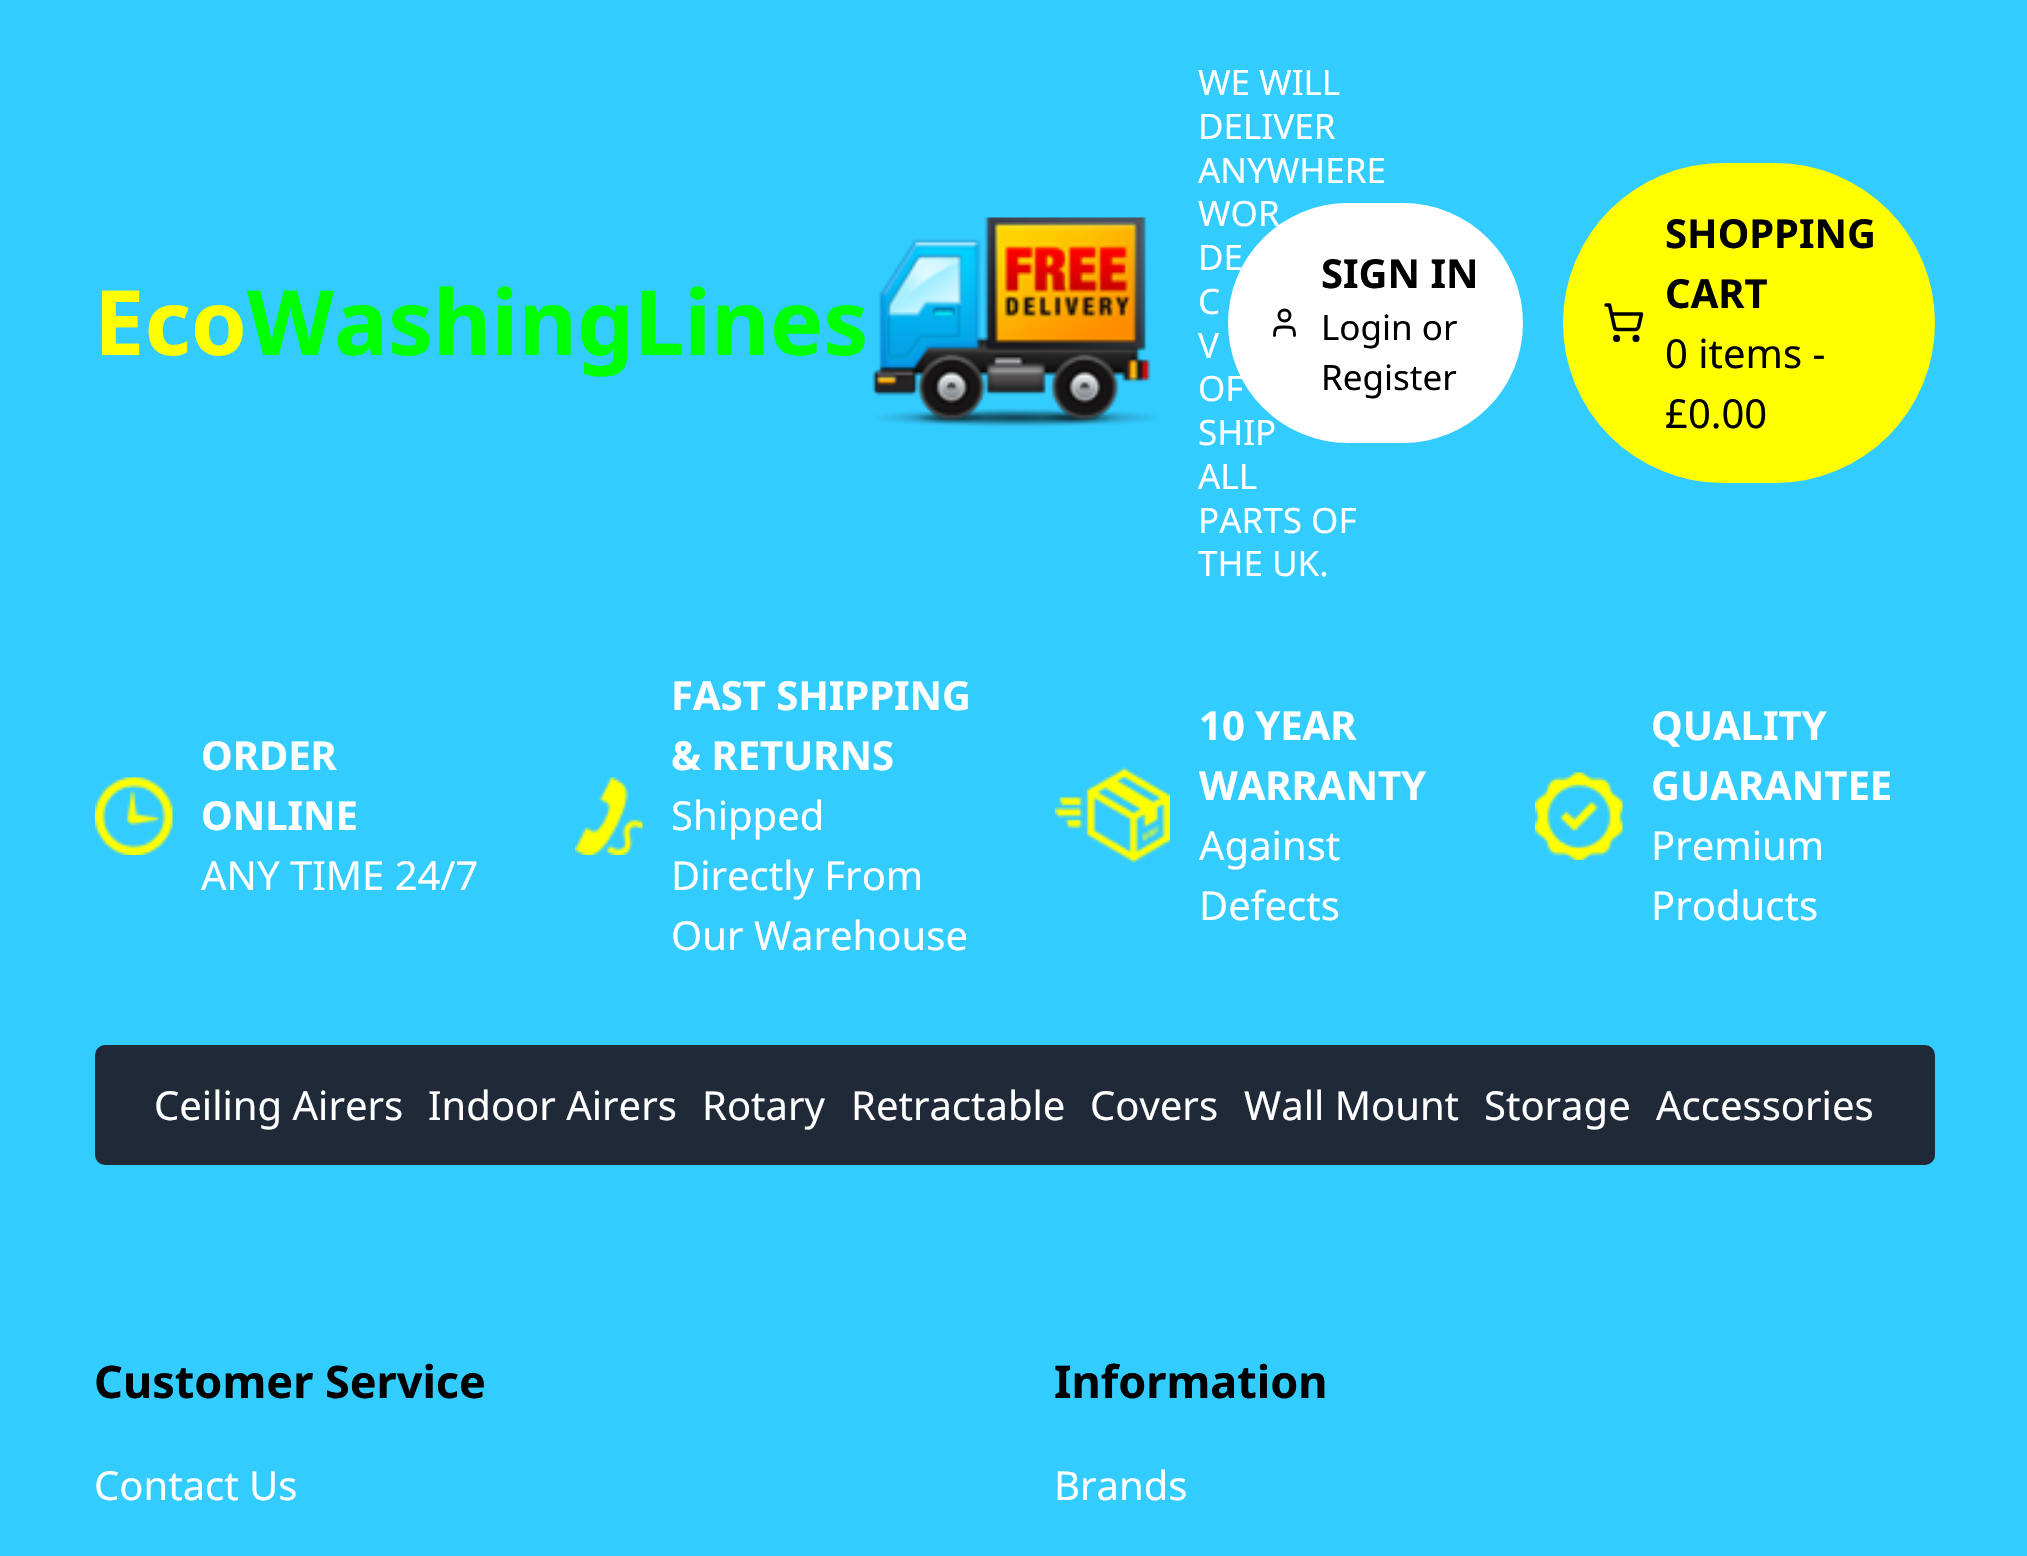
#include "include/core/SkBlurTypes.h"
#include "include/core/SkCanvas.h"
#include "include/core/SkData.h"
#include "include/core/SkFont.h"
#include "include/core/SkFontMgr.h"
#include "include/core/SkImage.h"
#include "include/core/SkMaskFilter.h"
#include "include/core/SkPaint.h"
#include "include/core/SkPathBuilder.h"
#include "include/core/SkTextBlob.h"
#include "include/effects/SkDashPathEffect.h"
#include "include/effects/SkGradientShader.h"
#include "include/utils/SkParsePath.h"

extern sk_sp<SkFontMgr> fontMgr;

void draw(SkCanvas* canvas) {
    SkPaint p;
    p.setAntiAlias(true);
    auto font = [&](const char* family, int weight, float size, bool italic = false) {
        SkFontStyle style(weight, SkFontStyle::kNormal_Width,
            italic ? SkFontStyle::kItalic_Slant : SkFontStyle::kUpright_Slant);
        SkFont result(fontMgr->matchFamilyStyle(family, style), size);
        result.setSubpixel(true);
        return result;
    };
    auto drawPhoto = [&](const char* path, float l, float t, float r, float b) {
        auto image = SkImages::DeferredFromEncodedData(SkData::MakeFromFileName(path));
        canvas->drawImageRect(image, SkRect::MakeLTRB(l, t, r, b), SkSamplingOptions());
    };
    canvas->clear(0xFF33CCFF);
    auto font1 = font("Noto Sans", 700, 90);
    p.setColor(0xFFFFFF00);
    canvas->drawString("Eco", 94, 355, font1, p);
    p.setColor(0xFF00FF00);
    canvas->drawString("WashingLines", 247, 355, font1, p);
    drawPhoto("media/1.png", 872, 217, 1158, 427);
    auto font2 = font("Noto Sans", 400, 35);
    p.setColor(0xFFFFFFFF);
    {
        const struct { const char* s; float x, y; } items[] = {
            {"WE WILL", 1198, 95},
            {"DELIVER", 1198, 139},
            {"ANYWHERE", 1198, 183},
            {"WOR", 1198, 226},
            {"DE", 1198, 270},
            {"C", 1198, 314},
            {"V", 1198, 358},
            {"OF", 1198, 401},
            {"SHIP", 1198, 445},
            {"ALL", 1198, 489},
            {"PARTS OF", 1198, 533},
            {"THE UK.", 1198, 576},
        };
        for (auto [s, x, y] : items) {
            canvas->drawString(s, x, y, font2, p);
        }
    }
    canvas->drawRoundRect(SkRect::MakeLTRB(1228, 203, 1523, 443), 120, 120, p);
    p.setStyle(SkPaint::kStroke_Style);
    p.setStrokeWidth(2.9f);
    p.setStrokeCap(SkPaint::kRound_Cap);
    p.setStrokeJoin(SkPaint::kRound_Join);
    p.setColor(0xFF000000);
    canvas->drawPath(SkPathBuilder().moveTo(1294.5f, 335.5f).cubicTo(1294.5f, 327, 1292.5f, 327, 1284.5f, 327).cubicTo(1277, 327, 1274.5f, 327, 1274.5f, 335.5f).detach(), p);
    p.setStrokeCap(SkPaint::kButt_Cap);
    p.setStrokeJoin(SkPaint::kMiter_Join);
    canvas->drawCircle(1284.5f, 315.5f, 5.5f, p);
    auto font3 = font("Noto Sans", 700, 40);
    p.setStyle(SkPaint::kFill_Style);
    canvas->drawString("SIGN IN", 1321, 288, font3, p);
    canvas->drawString("Login or", 1321, 340, font2, p);
    canvas->drawString("Register", 1321, 390, font2, p);
    p.setColor(0xFFFFFF00);
    canvas->drawRoundRect(SkRect::MakeLTRB(1563, 163, 1935, 483), 160, 160, p);
    p.setStyle(SkPaint::kStroke_Style);
    p.setStrokeWidth(3.5f);
    p.setColor(0xFF000000);
    canvas->drawCircle(1616.6f, 338.4f, 1.8f, p);
    canvas->drawCircle(1636, 338.4f, 1.8f, p);
    p.setStrokeCap(SkPaint::kRound_Cap);
    p.setStrokeJoin(SkPaint::kRound_Join);
    canvas->drawPath(SkPathBuilder().moveTo(1606, 305).lineTo(1609.5f, 305).lineTo(1614.5f, 327).cubicTo(1614.5f, 328.5f, 1616, 329.5f, 1618, 329.5f).lineTo(1635, 329.5f).cubicTo(1637, 329.5f, 1638, 328.5f, 1638.5f, 327).lineTo(1641.5f, 314).lineTo(1611.5f, 314).detach(), p);
    p.setStyle(SkPaint::kFill_Style);
    canvas->drawString("SHOPPING", 1665, 248, font3, p);
    canvas->drawString("CART", 1665, 308, font3, p);
    auto font4 = font("Noto Sans", 400, 40);
    canvas->drawString("0 items -", 1665, 368, font4, p);
    canvas->drawString("£0.00", 1665, 428, font4, p);
    drawPhoto("media/2.png", 95, 777, 173, 855);
    p.setColor(0xFFFFFFFF);
    canvas->drawString("ORDER", 201, 770, font3, p);
    canvas->drawString("ONLINE", 201, 830, font3, p);
    canvas->drawString("ANY TIME 24/7", 201, 890, font4, p);
    drawPhoto("media/3.png", 575, 777, 643, 855);
    canvas->drawString("FAST SHIPPING", 671, 710, font3, p);
    canvas->drawString("& RETURNS", 671, 770, font3, p);
    {
        const struct { const char* s; float x, y; } items[] = {
            {"Shipped", 671, 830},
            {"Directly From", 671, 890},
            {"Our Warehouse", 671, 950},
        };
        for (auto [s, x, y] : items) {
            canvas->drawString(s, x, y, font4, p);
        }
    }
    drawPhoto("media/4.png", 1055, 767, 1170, 863);
    canvas->drawString("10 YEAR", 1199, 740, font3, p);
    canvas->drawString("WARRANTY", 1199, 800, font3, p);
    canvas->drawString("Against", 1199, 860, font4, p);
    canvas->drawString("Defects", 1199, 920, font4, p);
    drawPhoto("media/5.png", 1535, 772, 1623, 860);
    canvas->drawString("QUALITY", 1651, 740, font3, p);
    canvas->drawString("GUARANTEE", 1651, 800, font3, p);
    canvas->drawString("Premium", 1651, 860, font4, p);
    canvas->drawString("Products", 1651, 920, font4, p);
    p.setColor(0xFF1F2937);
    canvas->drawRoundRect(SkRect::MakeLTRB(95, 1045, 1935, 1165), 10, 10, p);
    p.setColor(0xFFFFFFFF);
    {
        const struct { const char* s; float x, y; } items[] = {
            {"Ceiling Airers", 154, 1120},
            {"Indoor Airers", 428, 1120},
            {"Rotary", 702, 1120},
            {"Retractable", 851, 1120},
            {"Covers", 1090, 1120},
            {"Wall Mount", 1244, 1120},
            {"Storage", 1484, 1120},
            {"Accessories", 1656, 1120},
        };
        for (auto [s, x, y] : items) {
            canvas->drawString(s, x, y, font4, p);
        }
    }
    auto font5 = font("Noto Sans", 700, 45);
    p.setColor(0xFF000000);
    canvas->drawString("Customer Service", 94, 1398, font5, p);
    p.setColor(0xFFFFFFFF);
    canvas->drawString("Contact Us", 94, 1500, font4, p);
    p.setColor(0xFF000000);
    canvas->drawString("Information", 1054, 1398, font5, p);
    p.setColor(0xFFFFFFFF);
    canvas->drawString("Brands", 1054, 1500, font4, p);
}
